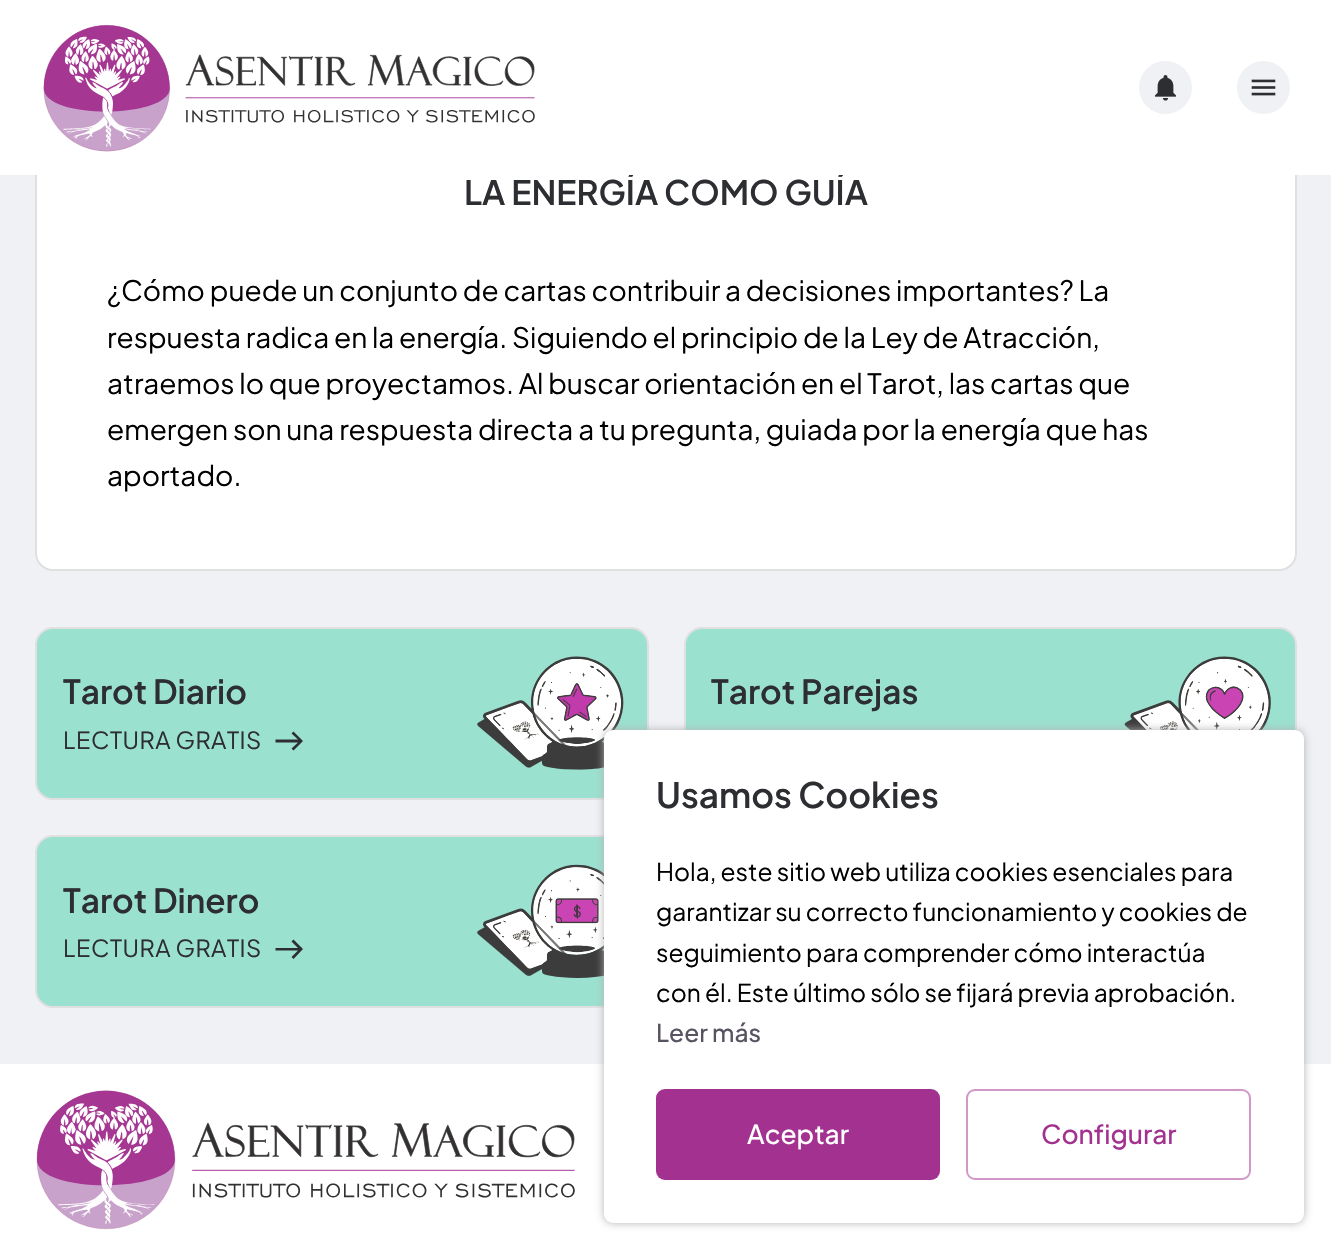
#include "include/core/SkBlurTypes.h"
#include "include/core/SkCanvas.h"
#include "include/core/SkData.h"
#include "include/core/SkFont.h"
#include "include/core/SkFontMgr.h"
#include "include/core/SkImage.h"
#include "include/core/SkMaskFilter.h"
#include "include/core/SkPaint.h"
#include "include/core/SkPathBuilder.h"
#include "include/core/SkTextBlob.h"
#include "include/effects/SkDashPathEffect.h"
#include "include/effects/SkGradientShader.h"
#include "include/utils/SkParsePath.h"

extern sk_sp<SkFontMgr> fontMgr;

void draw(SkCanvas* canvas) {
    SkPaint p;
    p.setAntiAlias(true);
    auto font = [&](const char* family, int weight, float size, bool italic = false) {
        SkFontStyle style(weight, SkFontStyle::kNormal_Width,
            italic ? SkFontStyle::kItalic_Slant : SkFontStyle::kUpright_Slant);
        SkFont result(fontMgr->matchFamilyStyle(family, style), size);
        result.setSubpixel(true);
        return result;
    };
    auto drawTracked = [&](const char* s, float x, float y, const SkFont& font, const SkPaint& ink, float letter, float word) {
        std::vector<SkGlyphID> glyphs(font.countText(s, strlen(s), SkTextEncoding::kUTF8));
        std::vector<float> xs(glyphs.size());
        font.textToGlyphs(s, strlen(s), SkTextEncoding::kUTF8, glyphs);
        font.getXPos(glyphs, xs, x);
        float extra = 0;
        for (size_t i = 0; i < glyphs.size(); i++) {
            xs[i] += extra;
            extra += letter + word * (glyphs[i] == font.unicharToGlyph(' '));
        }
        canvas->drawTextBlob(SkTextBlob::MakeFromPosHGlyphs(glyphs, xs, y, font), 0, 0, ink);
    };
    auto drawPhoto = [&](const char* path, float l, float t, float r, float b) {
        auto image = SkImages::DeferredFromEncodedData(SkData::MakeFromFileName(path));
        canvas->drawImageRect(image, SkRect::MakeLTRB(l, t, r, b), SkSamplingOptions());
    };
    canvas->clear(0xFFF0F1F5);
    p.setColor(0xFFFFFFFF);
    canvas->drawRoundRect(SkRect::MakeLTRB(36, -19, 1296, 570), 17, 17, p);
    p.setStyle(SkPaint::kStroke_Style);
    p.setStrokeWidth(2);
    p.setColor(0xFFE0E0E0);
    canvas->drawRoundRect(SkRect::MakeLTRB(36, -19, 1296, 570), 17, 17, p);
    auto font1 = font("Plus Jakarta Sans", 600, 33.6f);
    p.setStyle(SkPaint::kFill_Style);
    p.setColor(0xFF2C2E32);
    canvas->drawString("LA ENERGÍA COMO GUÍA", 464, 205, font1, p);
    p.setColor(0xFFFFFFFF);
    canvas->drawRect(SkRect::MakeLTRB(0, 0, 1331, 175), p);
    drawPhoto("media/1.png", 43, 24, 535, 152);
    p.setColor(0xFFF0F1F5);
    canvas->drawCircle(1165.5f, 87.5f, 26.5f, p);
    drawPhoto("media/2.png", 1155, 75, 1176, 101);
    canvas->drawCircle(1263.5f, 87.5f, 26.5f, p);
    drawPhoto("media/3.png", 1251, 79, 1276, 96);
    auto font2 = font("Plus Jakarta Sans", 400, 28);
    p.setColor(0xFF000000);
    {
        const struct { const char* s; float x, y; } items[] = {
            {"¿Cómo puede un conjunto de cartas contribuir a decisiones importantes? La", 107, 301},
            {"respuesta radica en la energía. Siguiendo el principio de la Ley de Atracción,", 107, 348},
            {"atraemos lo que proyectamos. Al buscar orientación en el Tarot, las cartas que", 107, 394},
            {"emergen son una respuesta directa a tu pregunta, guiada por la energía que has", 107, 440},
            {"aportado.", 107, 486},
        };
        for (auto [s, x, y] : items) {
            canvas->drawString(s, x, y, font2, p);
        }
    }
    p.setColor(0xFF9BE1D0);
    canvas->drawRoundRect(SkRect::MakeLTRB(36, 628, 648, 799), 17, 17, p);
    p.setStyle(SkPaint::kStroke_Style);
    p.setColor(0xFFE0E0E0);
    canvas->drawRoundRect(SkRect::MakeLTRB(36, 628, 648, 799), 17, 17, p);
    auto font3 = font("Plus Jakarta Sans", 600, 33.25f);
    p.setStyle(SkPaint::kFill_Style);
    p.setColor(0xFF2C2E32);
    canvas->drawString("Tarot Diario", 63, 704, font3, p);
    auto font4 = font("Plus Jakarta Sans", 400, 23.6f);
    drawTracked("LECTURA GRATIS", 63, 749, font4, p, 0.5f, 0);
    canvas->drawPath(SkPathBuilder().moveTo(293.5f, 731.5f).lineTo(291.5f, 733.5f).lineTo(298, 739.5f).lineTo(275.5f, 739.5f).lineTo(275.5f, 742.5f).lineTo(298, 742.5f).lineTo(291.5f, 748.5f).lineTo(293.5f, 750.5f).lineTo(303, 741).close().detach(), p);
    drawPhoto("media/4.png", 476, 656, 624, 770);
    p.setColor(0xFF9BE1D0);
    canvas->drawRoundRect(SkRect::MakeLTRB(685, 628, 1296, 799), 17, 17, p);
    p.setStyle(SkPaint::kStroke_Style);
    p.setColor(0xFFE0E0E0);
    canvas->drawRoundRect(SkRect::MakeLTRB(685, 628, 1296, 799), 17, 17, p);
    p.setStyle(SkPaint::kFill_Style);
    p.setColor(0xFF2C2E32);
    canvas->drawString("Tarot Parejas", 711, 704, font3, p);
    drawPhoto("media/5.png", 1124, 656, 1271, 730);
    p.setColor(0xFF9BE1D0);
    canvas->drawRoundRect(SkRect::MakeLTRB(36, 836, 648, 1007), 17, 17, p);
    p.setStyle(SkPaint::kStroke_Style);
    p.setColor(0xFFE0E0E0);
    canvas->drawRoundRect(SkRect::MakeLTRB(36, 836, 648, 1007), 17, 17, p);
    p.setStyle(SkPaint::kFill_Style);
    p.setColor(0xFF2C2E32);
    canvas->drawString("Tarot Dinero", 63, 913, font3, p);
    drawTracked("LECTURA GRATIS", 63, 957, font4, p, 0.5f, 0);
    canvas->drawPath(SkPathBuilder().moveTo(293.5f, 939.5f).lineTo(291.5f, 941.5f).lineTo(298, 948).lineTo(275.5f, 948).lineTo(275.5f, 950.5f).lineTo(298, 950.5f).lineTo(291.5f, 957).lineTo(293.5f, 959).lineTo(303, 949).close().detach(), p);
    drawPhoto("media/6.png", 476, 864, 604, 978);
    p.setColor(0xFFFFFFFF);
    canvas->drawRect(SkRect::MakeLTRB(0, 1064, 1331, 1251), p);
    drawPhoto("media/7.png", 36, 1090, 575, 1230);
    p.setColor(0xFFB3B3B3);
    p.setMaskFilter(SkMaskFilter::MakeBlur(kNormal_SkBlurStyle, 4.5f));
    canvas->drawRoundRect(SkRect::MakeLTRB(604, 730, 1304, 1223), 9, 9, p);
    p.setMaskFilter(nullptr);
    p.setColor(0xFFFFFFFF);
    canvas->drawRoundRect(SkRect::MakeLTRB(604, 730, 1304, 1223), 9, 9, p);
    auto font5 = font("Plus Jakarta Sans", 600, 35);
    p.setColor(0xFF2C2E32);
    canvas->drawString("Usamos Cookies", 656, 808, font5, p);
    auto font6 = font("Plus Jakarta Sans", 400, 24.5f);
    p.setColor(0xFF000000);
    {
        const struct { const char* s; float x, y; } items[] = {
            {"Hola, este sitio web utiliza cookies esenciales para", 656, 881},
            {"garantizar su correcto funcionamiento y cookies de", 656, 921},
            {"seguimiento para comprender cómo interactúa", 656, 962},
            {"con él. Este último sólo se fijará previa aprobación.", 656, 1002},
        };
        for (auto [s, x, y] : items) {
            canvas->drawString(s, x, y, font6, p);
        }
    }
    auto font7 = font("Plus Jakarta Sans", 500, 24.5f);
    p.setColor(0xFF595362);
    canvas->drawString("Leer más", 656, 1042, font7, p);
    p.setColor(0xFFA2318F);
    canvas->drawRoundRect(SkRect::MakeLTRB(656, 1089, 940, 1180), 9, 9, p);
    auto font8 = font("Plus Jakarta Sans", 500, 26.25f);
    p.setColor(0xFFFFFFFF);
    canvas->drawString("Aceptar", 747, 1144, font8, p);
    p.setStyle(SkPaint::kStroke_Style);
    p.setColor(0xFFD198C7);
    canvas->drawRoundRect(SkRect::MakeLTRB(967, 1090, 1250, 1179), 8, 8, p);
    p.setStyle(SkPaint::kFill_Style);
    p.setColor(0xFFA2318F);
    canvas->drawString("Configurar", 1041, 1144, font8, p);
}
